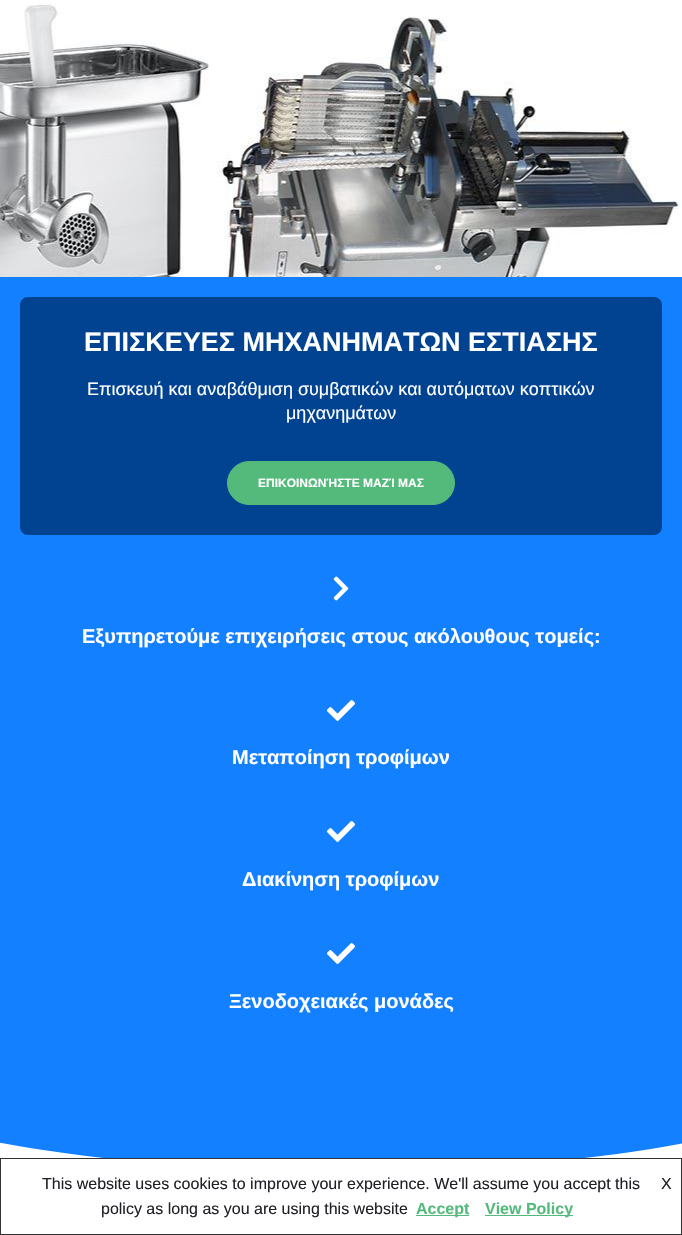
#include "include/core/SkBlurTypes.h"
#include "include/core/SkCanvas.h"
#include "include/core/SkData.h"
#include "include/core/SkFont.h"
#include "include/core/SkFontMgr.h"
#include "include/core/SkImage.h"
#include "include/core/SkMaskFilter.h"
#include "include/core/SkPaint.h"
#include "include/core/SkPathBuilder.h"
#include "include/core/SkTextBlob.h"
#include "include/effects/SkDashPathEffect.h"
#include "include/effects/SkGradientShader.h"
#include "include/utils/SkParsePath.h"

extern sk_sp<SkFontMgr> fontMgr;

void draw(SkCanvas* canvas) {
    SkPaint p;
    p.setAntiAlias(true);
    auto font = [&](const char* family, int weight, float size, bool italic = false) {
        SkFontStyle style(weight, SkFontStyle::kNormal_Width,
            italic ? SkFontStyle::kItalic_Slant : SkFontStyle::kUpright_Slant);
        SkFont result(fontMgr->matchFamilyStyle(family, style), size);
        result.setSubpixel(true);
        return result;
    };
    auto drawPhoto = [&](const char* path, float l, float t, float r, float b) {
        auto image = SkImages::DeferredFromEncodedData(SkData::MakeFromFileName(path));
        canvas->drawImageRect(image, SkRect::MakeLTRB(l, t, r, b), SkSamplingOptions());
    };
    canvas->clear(0xFFFFFFFF);
    drawPhoto("media/1.png", 0, 2, 680, 277);
    p.setColor(0xFF1380FF);
    canvas->drawRect(SkRect::MakeLTRB(0, 277, 682, 1158), p);
    p.setColor(0xFF014391);
    canvas->drawRoundRect(SkRect::MakeLTRB(20, 297, 662, 535), 8, 8, p);
    auto font1 = font("Liberation Sans", 700, 27);
    p.setColor(0xFFFFFFFF);
    canvas->drawString("ΕΠΙΣΚΕΥΕΣ ΜΗΧΑΝΗΜΑΤΩΝ ΕΣΤΙΑΣΗΣ", 84, 351, font1, p);
    auto font2 = font("Liberation Sans", 400, 18);
    canvas->drawString("Επισκευή και αναβάθμιση συμβατικών και αυτόματων κοπτικών", 87, 395, font2, p);
    canvas->drawString("μηχανημάτων", 286, 419, font2, p);
    p.setColor(0xFF53BA7B);
    canvas->drawRoundRect(SkRect::MakeLTRB(227.5f, 461.5f, 454.5f, 504.5f), 21.5f, 21.5f, p);
    p.setStyle(SkPaint::kStroke_Style);
    p.setStrokeWidth(1);
    canvas->drawRoundRect(SkRect::MakeLTRB(227.5f, 461.5f, 454.5f, 504.5f), 21.5f, 21.5f, p);
    auto font3 = font("Liberation Sans", 700, 12);
    p.setStyle(SkPaint::kFill_Style);
    p.setColor(0xFFFFFFFF);
    canvas->drawString("ΕΠΙΚΟΙΝΩΝΉΣΤΕ ΜΑΖΊ ΜΑΣ", 258, 487, font3, p);
    drawPhoto("media/2.png", 333, 576, 349, 601);
    auto font4 = font("Liberation Sans", 700, 20);
    canvas->drawString("Εξυπηρετούμε επιχειρήσεις στους ακόλουθους τομείς:", 82, 643, font4, p);
    drawPhoto("media/3.png", 327, 700, 355, 721);
    canvas->drawString("Μεταποίηση τροφίμων", 232, 764, font4, p);
    drawPhoto("media/3.png", 327, 821, 355, 842);
    canvas->drawString("Διακίνηση τροφίμων", 242, 886, font4, p);
    drawPhoto("media/3.png", 327, 943, 355, 964);
    canvas->drawString("Ξενοδοχειακές μονάδες", 229, 1008, font4, p);
    canvas->drawPath(SkPathBuilder().moveTo(341, 1170).cubicTo(-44, 1169, -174, 1094, -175, 1074).lineTo(-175, 1173).lineTo(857, 1173).lineTo(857, 1075).cubicTo(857, 1093, 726, 1171, 341, 1170).close().detach(), p);
    p.setStyle(SkPaint::kStroke_Style);
    p.setColor(0xFF333333);
    canvas->drawRect(SkRect::MakeLTRB(0.5f, 1158.5f, 681.5f, 1234.5f), p);
    auto font5 = font("Liberation Sans", 400, 16);
    p.setStyle(SkPaint::kFill_Style);
    p.setColor(0xFF1F2025);
    {
        const struct { const char* s; float x, y; } items[] = {
            {"This website uses cookies to improve your experience. We'll assume you accept this", 42, 1189},
            {"X", 661, 1189},
            {"policy as long as you are using this website", 101, 1214},
        };
        for (auto [s, x, y] : items) {
            canvas->drawString(s, x, y, font5, p);
        }
    }
    p.setColor(0xFF53BA7B);
    canvas->drawRect(SkRect::MakeLTRB(416, 1215, 469, 1216), p);
    auto font6 = font("Liberation Sans", 700, 16);
    canvas->drawString("Accept", 416, 1214, font6, p);
    canvas->drawRect(SkRect::MakeLTRB(485, 1215, 573, 1216), p);
    canvas->drawString("View Policy", 485, 1214, font6, p);
}
